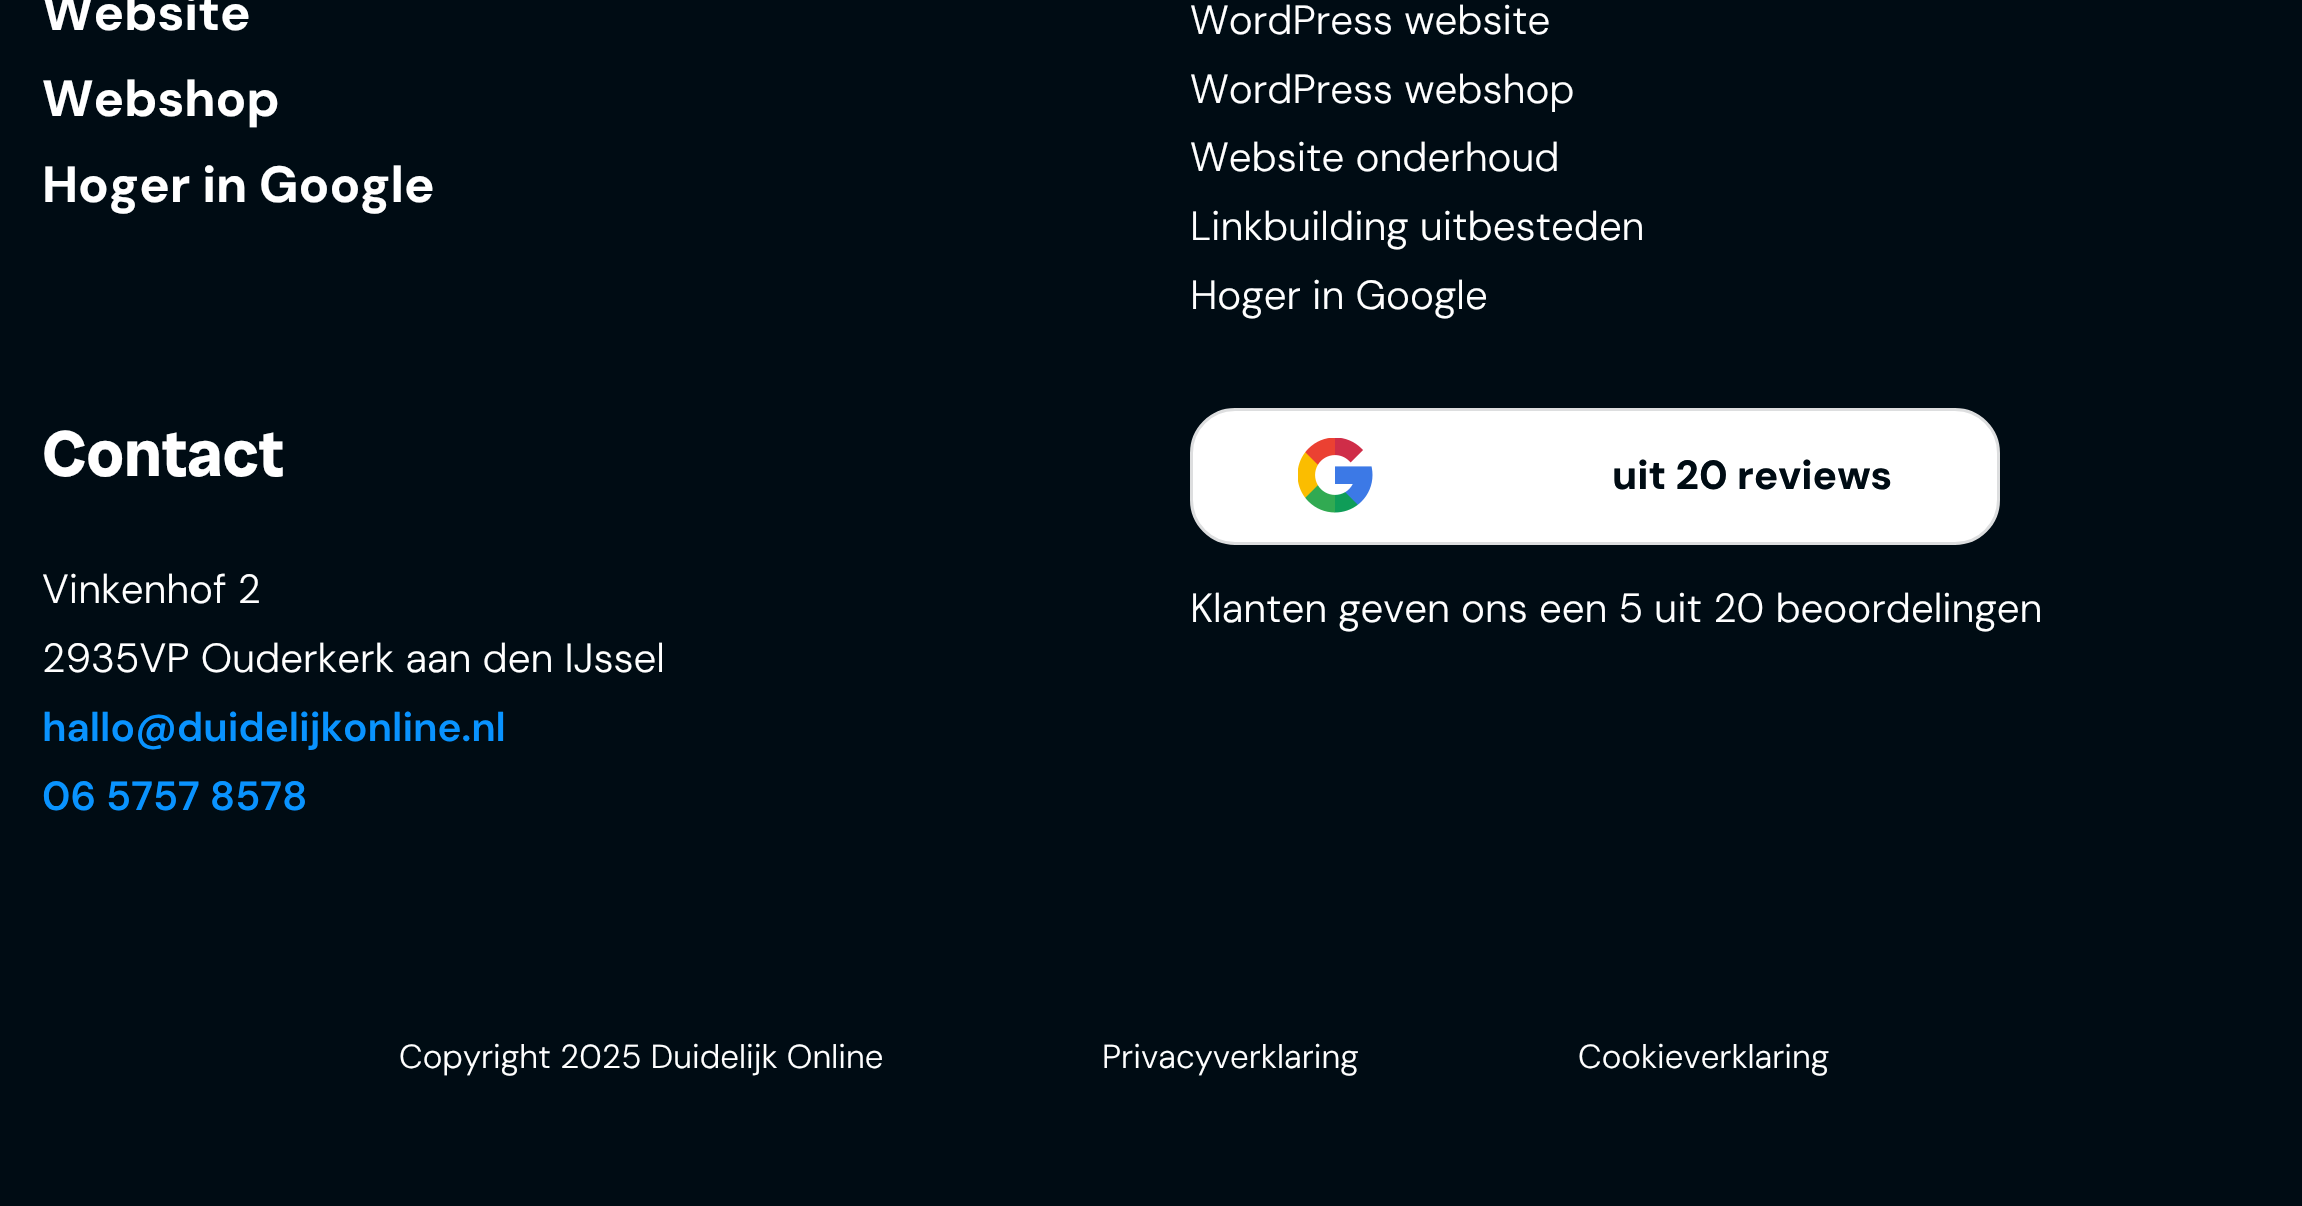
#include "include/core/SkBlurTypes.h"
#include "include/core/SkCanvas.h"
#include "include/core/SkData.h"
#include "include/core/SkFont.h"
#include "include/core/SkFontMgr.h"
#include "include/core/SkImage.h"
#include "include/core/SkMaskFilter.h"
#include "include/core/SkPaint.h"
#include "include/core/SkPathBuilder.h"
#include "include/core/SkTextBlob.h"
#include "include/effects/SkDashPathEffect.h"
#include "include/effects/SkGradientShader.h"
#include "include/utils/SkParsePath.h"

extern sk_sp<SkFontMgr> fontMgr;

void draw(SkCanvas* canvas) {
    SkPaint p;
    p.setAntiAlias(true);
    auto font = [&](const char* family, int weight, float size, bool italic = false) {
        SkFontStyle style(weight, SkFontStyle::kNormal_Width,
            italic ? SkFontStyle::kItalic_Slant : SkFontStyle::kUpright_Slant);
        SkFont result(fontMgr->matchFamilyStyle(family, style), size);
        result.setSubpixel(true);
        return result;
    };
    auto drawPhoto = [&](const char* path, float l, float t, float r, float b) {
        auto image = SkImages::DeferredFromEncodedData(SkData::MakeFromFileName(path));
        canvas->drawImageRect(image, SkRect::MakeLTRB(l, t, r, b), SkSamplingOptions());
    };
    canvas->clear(0xFF000C14);
    auto font1 = font("DM Sans", 700, 50.75f);
    p.setColor(0xFFFFFFFF);
    {
        const struct { const char* s; float x, y; } items[] = {
            {"Website", 42, 30},
            {"Webshop", 42, 116},
            {"Hoger in Google", 42, 202},
        };
        for (auto [s, x, y] : items) {
            canvas->drawString(s, x, y, font1, p);
        }
    }
    auto font2 = font("DM Sans", 300, 40.6f);
    {
        const struct { const char* s; float x, y; } items[] = {
            {"WordPress website", 1190, 34},
            {"WordPress webshop", 1190, 103},
            {"Website onderhoud", 1190, 171},
            {"Linkbuilding uitbesteden", 1190, 240},
            {"Hoger in Google", 1190, 309},
        };
        for (auto [s, x, y] : items) {
            canvas->drawString(s, x, y, font2, p);
        }
    }
    auto font3 = font("Radio Canada Big", 700, 65);
    canvas->drawString("Contact", 42, 476, font3, p);
    canvas->drawString("Vinkenhof 2", 42, 603, font2, p);
    canvas->drawString("2935VP Ouderkerk aan den IJssel", 42, 672, font2, p);
    auto font4 = font("DM Sans", 600, 40.6f);
    p.setColor(0xFF0993FF);
    canvas->drawString("hallo@duidelijkonline.nl", 42, 741, font4, p);
    canvas->drawString("06 5757 8578", 42, 810, font4, p);
    p.setColor(0xFFFFFFFF);
    canvas->drawRoundRect(SkRect::MakeLTRB(1191.5f, 409.5f, 1998.5f, 543.5f), 43.5f, 43.5f, p);
    p.setStyle(SkPaint::kStroke_Style);
    p.setStrokeWidth(3);
    p.setColor(0xFFDDDEDF);
    canvas->drawRoundRect(SkRect::MakeLTRB(1191.5f, 409.5f, 1998.5f, 543.5f), 43.5f, 43.5f, p);
    drawPhoto("media/1.png", 1298, 438, 1373, 513);
    auto font5 = font("DM Sans", 800, 40.6f);
    p.setStyle(SkPaint::kFill_Style);
    p.setColor(0xFF000C14);
    canvas->drawString("uit 20 reviews", 1612, 489, font5, p);
    p.setColor(0xFFFFFFFF);
    canvas->drawString("Klanten geven ons een 5 uit 20 beoordelingen", 1190, 622, font2, p);
    auto font6 = font("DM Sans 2", 300, 33.25f);
    {
        const struct { const char* s; float x, y; } items[] = {
            {"Copyright 2025 Duidelijk Online", 399, 1068},
            {"Privacyverklaring", 1102, 1068},
            {"Cookieverklaring", 1578, 1068},
        };
        for (auto [s, x, y] : items) {
            canvas->drawString(s, x, y, font6, p);
        }
    }
}
